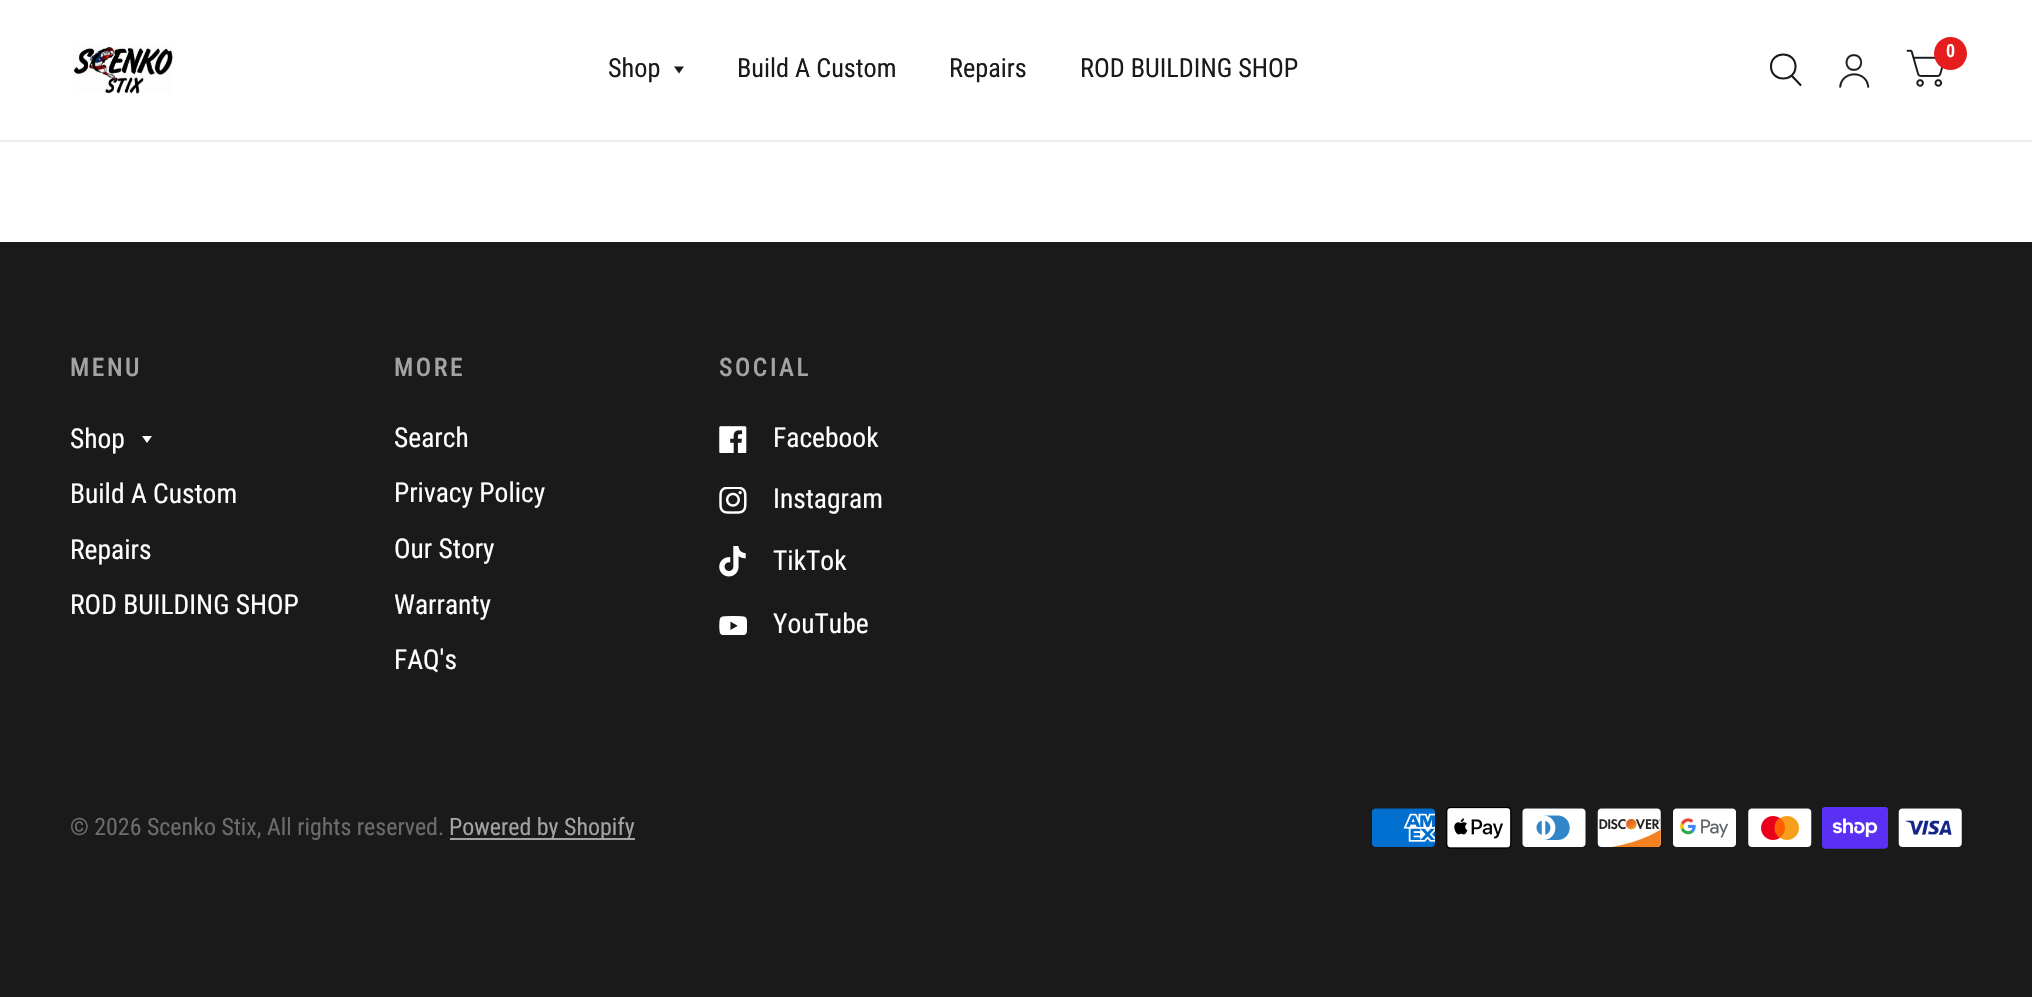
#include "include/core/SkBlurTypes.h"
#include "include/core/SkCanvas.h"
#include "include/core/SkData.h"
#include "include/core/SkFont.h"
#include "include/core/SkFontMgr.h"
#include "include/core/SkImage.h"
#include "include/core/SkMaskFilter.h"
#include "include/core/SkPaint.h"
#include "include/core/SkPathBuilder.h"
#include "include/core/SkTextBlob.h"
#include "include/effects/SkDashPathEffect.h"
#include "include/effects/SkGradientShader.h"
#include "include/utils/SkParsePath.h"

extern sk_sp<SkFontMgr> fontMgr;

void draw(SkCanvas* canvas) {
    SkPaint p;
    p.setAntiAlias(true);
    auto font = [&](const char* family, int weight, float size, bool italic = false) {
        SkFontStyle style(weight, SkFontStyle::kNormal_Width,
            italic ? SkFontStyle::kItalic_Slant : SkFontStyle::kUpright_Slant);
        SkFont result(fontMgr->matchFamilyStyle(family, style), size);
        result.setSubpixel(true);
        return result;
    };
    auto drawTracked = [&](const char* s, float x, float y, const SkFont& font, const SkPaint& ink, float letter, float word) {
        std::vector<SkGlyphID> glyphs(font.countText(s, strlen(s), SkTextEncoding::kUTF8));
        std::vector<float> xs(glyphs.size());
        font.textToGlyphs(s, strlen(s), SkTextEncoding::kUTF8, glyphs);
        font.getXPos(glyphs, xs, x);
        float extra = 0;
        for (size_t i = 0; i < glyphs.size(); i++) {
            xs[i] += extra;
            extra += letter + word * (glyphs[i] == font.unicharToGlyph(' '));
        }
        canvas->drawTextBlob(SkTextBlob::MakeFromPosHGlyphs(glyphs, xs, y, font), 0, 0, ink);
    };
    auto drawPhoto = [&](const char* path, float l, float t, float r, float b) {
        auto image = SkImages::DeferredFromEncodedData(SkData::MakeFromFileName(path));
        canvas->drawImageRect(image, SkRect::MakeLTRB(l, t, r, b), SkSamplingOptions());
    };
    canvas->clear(0xFFFFFFFF);
    p.setColor(0xFFEEEEEE);
    canvas->drawRect(SkRect::MakeLTRB(0, 140, 2032, 142), p);
    drawPhoto("media/1.png", 73, 46, 173, 94);
    auto font1 = font("Roboto Condensed", 400, 26.25f);
    p.setColor(0xFF1A1A1A);
    canvas->drawString("Shop", 608, 77, font1, p);
    canvas->drawPath(SkPathBuilder().moveTo(674, 66.5f).lineTo(684, 66.5f).lineTo(679, 73.5f).close().detach(), p);
    {
        const struct { const char* s; float x, y; } items[] = {
            {"Build A Custom", 737, 77},
            {"Repairs", 949, 77},
            {"ROD BUILDING SHOP", 1080, 77},
        };
        for (auto [s, x, y] : items) {
            canvas->drawString(s, x, y, font1, p);
        }
    }
    drawPhoto("media/2.png", 1906, 49, 1943, 87);
    p.setColor(0xFFE51D1D);
    canvas->drawCircle(1950.5f, 53.5f, 16.5f, p);
    auto font2 = font("Roboto Condensed", 600, 18);
    p.setColor(0xFFFFFFFF);
    canvas->drawString("0", 1946, 57, font2, p);
    p.setStyle(SkPaint::kStroke_Style);
    p.setStrokeWidth(2.1f);
    p.setStrokeCap(SkPaint::kRound_Cap);
    p.setStrokeJoin(SkPaint::kRound_Join);
    p.setColor(0xFF1A1A1A);
    canvas->drawPath(SkPathBuilder().moveTo(1792, 76).lineTo(1800.5f, 85).moveTo(1795.5f, 66.5f).cubicTo(1795.5f, 82.5f, 1771, 82.5f, 1771, 66.5f).cubicTo(1771, 50.5f, 1795.5f, 50.5f, 1795.5f, 66.5f).close().detach(), p);
    drawPhoto("media/3.png", 1839, 54, 1870, 88);
    p.setStyle(SkPaint::kFill_Style);
    canvas->drawRect(SkRect::MakeLTRB(0, 242, 2032, 997), p);
    auto font3 = font("Roboto Condensed", 500, 25.5f);
    p.setColor(0xFFA3A3A3);
    drawTracked("MENU", 70, 376, font3, p, 2.5f, 0);
    auto font4 = font("Roboto Condensed", 400, 27.5f);
    p.setColor(0xFFFFFFFF);
    canvas->drawString("Shop", 70, 448, font4, p);
    canvas->drawPath(SkPathBuilder().moveTo(142, 436).lineTo(152, 436).lineTo(147, 443).close().detach(), p);
    {
        const struct { const char* s; float x, y; } items[] = {
            {"Build A Custom", 70, 503},
            {"Repairs", 70, 559},
            {"ROD BUILDING SHOP", 70, 614},
        };
        for (auto [s, x, y] : items) {
            canvas->drawString(s, x, y, font4, p);
        }
    }
    p.setColor(0xFFA3A3A3);
    drawTracked("MORE", 394, 376, font3, p, 2.5f, 0);
    p.setColor(0xFFFFFFFF);
    {
        const struct { const char* s; float x, y; } items[] = {
            {"Search", 394, 447},
            {"Privacy Policy", 394, 502},
            {"Our Story", 394, 558},
            {"Warranty", 394, 614},
            {"FAQ's", 394, 669},
        };
        for (auto [s, x, y] : items) {
            canvas->drawString(s, x, y, font4, p);
        }
    }
    p.setColor(0xFFA3A3A3);
    drawTracked("SOCIAL", 719, 376, font3, p, 2.5f, 0);
    drawPhoto("media/4.png", 719, 426, 747, 453);
    p.setColor(0xFFFFFFFF);
    canvas->drawString("Facebook", 773, 447, font4, p);
    drawPhoto("media/5.png", 719, 487, 747, 514);
    canvas->drawString("Instagram", 773, 508, font4, p);
    drawPhoto("media/6.png", 719, 546, 746, 577);
    canvas->drawString("TikTok", 773, 570, font4, p);
    drawPhoto("media/7.png", 719, 616, 747, 635);
    canvas->drawString("YouTube", 773, 633, font4, p);
    auto font5 = font("Roboto Condensed", 400, 23.9f);
    p.setColor(0xFF6C6C6C);
    canvas->drawString("© 2026 Scenko Stix, All rights reserved.", 70, 835, font5, p);
    p.setColor(0xFFA3A3A3);
    canvas->drawRect(SkRect::MakeLTRB(450, 838, 635, 840), p);
    canvas->drawString("Powered by Shopify", 449, 835, font5, p);
    drawPhoto("media/8.png", 1372, 808, 1435, 847);
    drawPhoto("media/9.png", 1446, 807, 1512, 849);
    drawPhoto("media/10.png", 1522, 808, 1586, 847);
    drawPhoto("media/11.png", 1597, 808, 1661, 847);
    drawPhoto("media/12.png", 1673, 808, 1736, 847);
    drawPhoto("media/13.png", 1748, 808, 1812, 847);
    drawPhoto("media/14.png", 1822, 807, 1888, 849);
    drawPhoto("media/15.png", 1898, 808, 1962, 847);
}
